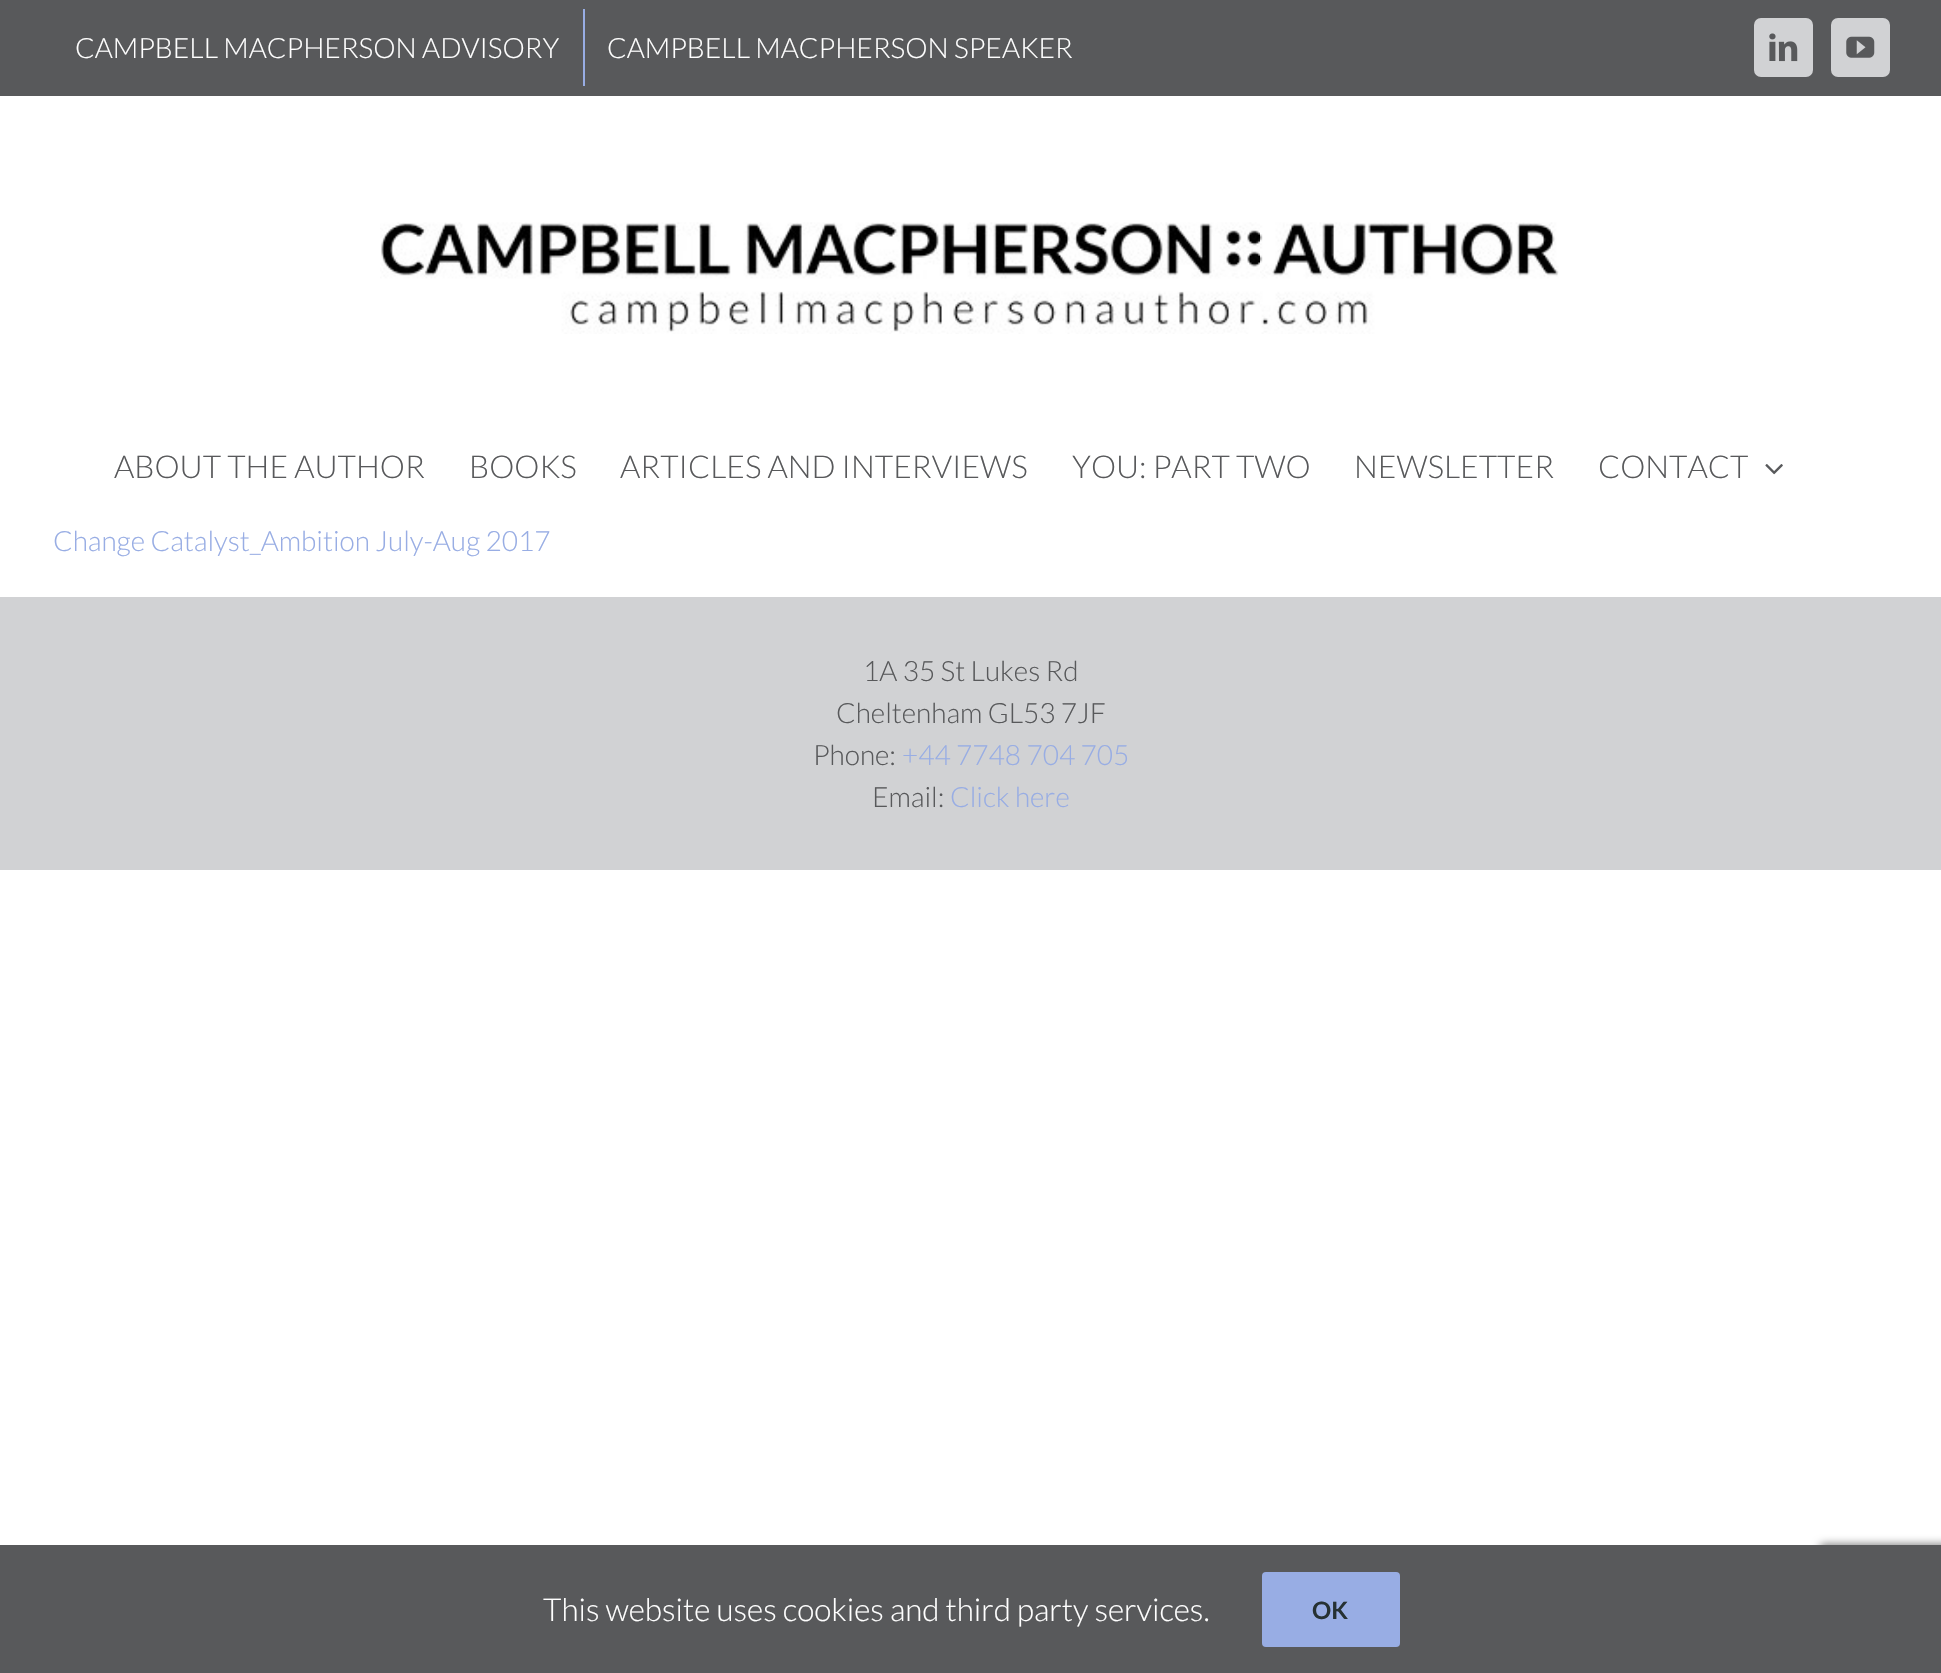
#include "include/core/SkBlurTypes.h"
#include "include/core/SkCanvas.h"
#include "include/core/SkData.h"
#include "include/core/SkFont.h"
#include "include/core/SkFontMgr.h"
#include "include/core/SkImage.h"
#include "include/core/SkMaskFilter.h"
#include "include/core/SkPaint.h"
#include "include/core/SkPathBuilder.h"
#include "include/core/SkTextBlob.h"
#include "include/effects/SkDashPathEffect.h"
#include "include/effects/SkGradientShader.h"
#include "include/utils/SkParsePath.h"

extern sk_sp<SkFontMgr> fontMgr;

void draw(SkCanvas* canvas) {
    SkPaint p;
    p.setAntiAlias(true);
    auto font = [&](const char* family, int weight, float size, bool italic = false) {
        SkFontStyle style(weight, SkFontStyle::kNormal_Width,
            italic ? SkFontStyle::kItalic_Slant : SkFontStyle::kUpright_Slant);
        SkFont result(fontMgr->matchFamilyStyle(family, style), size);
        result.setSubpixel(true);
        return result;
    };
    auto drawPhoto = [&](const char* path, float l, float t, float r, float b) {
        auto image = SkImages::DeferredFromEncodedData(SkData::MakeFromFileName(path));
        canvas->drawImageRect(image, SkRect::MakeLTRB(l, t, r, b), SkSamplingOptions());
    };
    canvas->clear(0xFFFFFFFF);
    p.setColor(0xFF58595B);
    canvas->drawRect(SkRect::MakeLTRB(0, 0, 1941, 96), p);
    auto font1 = font("Lato", 300, 28);
    p.setColor(0xFFFFFFFF);
    canvas->drawString("CAMPBELL MACPHERSON ADVISORY", 75, 58, font1, p);
    p.setColor(0xFF98ADE4);
    canvas->drawRect(SkRect::MakeLTRB(583, 9, 585, 86), p);
    p.setColor(0xFFFFFFFF);
    canvas->drawString("CAMPBELL MACPHERSON SPEAKER", 607, 58, font1, p);
    p.setColor(0xFFD1D2D4);
    canvas->drawRoundRect(SkRect::MakeLTRB(1755, 19, 1812, 76), 6, 6, p);
    p.setStyle(SkPaint::kStroke_Style);
    p.setStrokeWidth(2);
    canvas->drawRoundRect(SkRect::MakeLTRB(1755, 19, 1812, 76), 6, 6, p);
    drawPhoto("media/1.png", 1769, 33, 1798, 62);
    p.setStyle(SkPaint::kFill_Style);
    canvas->drawRoundRect(SkRect::MakeLTRB(1832, 19, 1889, 76), 6, 6, p);
    p.setStyle(SkPaint::kStroke_Style);
    canvas->drawRoundRect(SkRect::MakeLTRB(1832, 19, 1889, 76), 6, 6, p);
    drawPhoto("media/2.png", 1846, 36, 1875, 58);
    drawPhoto("media/3.png", 380, 222, 1559, 334);
    auto font2 = font("Lato", 300, 31.5f);
    p.setStyle(SkPaint::kFill_Style);
    p.setColor(0xFF58595B);
    {
        const struct { const char* s; float x, y; } items[] = {
            {"ABOUT THE AUTHOR", 114, 478},
            {"BOOKS", 469, 478},
            {"ARTICLES AND INTERVIEWS", 620, 478},
            {"YOU: PART TWO", 1072, 478},
            {"NEWSLETTER", 1354, 478},
            {"CONTACT", 1598, 478},
        };
        for (auto [s, x, y] : items) {
            canvas->drawString(s, x, y, font2, p);
        }
    }
    drawPhoto("media/4.png", 1765, 464, 1783, 475);
    p.setColor(0xFF98ADE4);
    canvas->drawString("Change Catalyst_Ambition July-Aug 2017", 53, 551, font1, p);
    p.setColor(0xFFD1D2D4);
    canvas->drawRect(SkRect::MakeLTRB(0, 597, 1941, 870), p);
    p.setColor(0xFF58595B);
    {
        const struct { const char* s; float x, y; } items[] = {
            {"1A 35 St Lukes Rd", 863, 681},
            {"Cheltenham GL53 7JF", 836, 723},
            {"Phone:", 813, 765},
        };
        for (auto [s, x, y] : items) {
            canvas->drawString(s, x, y, font1, p);
        }
    }
    p.setColor(0xFF98ADE4);
    canvas->drawString("+44 7748 704 705", 902, 765, font1, p);
    p.setColor(0xFF58595B);
    canvas->drawString("Email:", 872, 807, font1, p);
    p.setColor(0xFF98ADE4);
    canvas->drawString("Click here", 950, 807, font1, p);
    p.setColor(0xFF808080);
    p.setMaskFilter(SkMaskFilter::MakeBlur(kNormal_SkBlurStyle, 4.5f));
    canvas->drawRoundRect(SkRect::MakeLTRB(1820, 1544, 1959, 1649), 4, 4, p);
    p.setMaskFilter(nullptr);
    p.setColor(0xFF58595B);
    canvas->drawRect(SkRect::MakeLTRB(0, 1545, 1941, 1673), p);
    p.setColor(0xFFFFFFFF);
    canvas->drawString("This website uses cookies and third party services.", 543, 1621, font2, p);
    p.setColor(0xFF98ADE4);
    canvas->drawRoundRect(SkRect::MakeLTRB(1262, 1572, 1400, 1647), 4, 4, p);
    auto font3 = font("Lato", 700, 24);
    p.setColor(0xFF263133);
    canvas->drawString("OK", 1312, 1619, font3, p);
}
